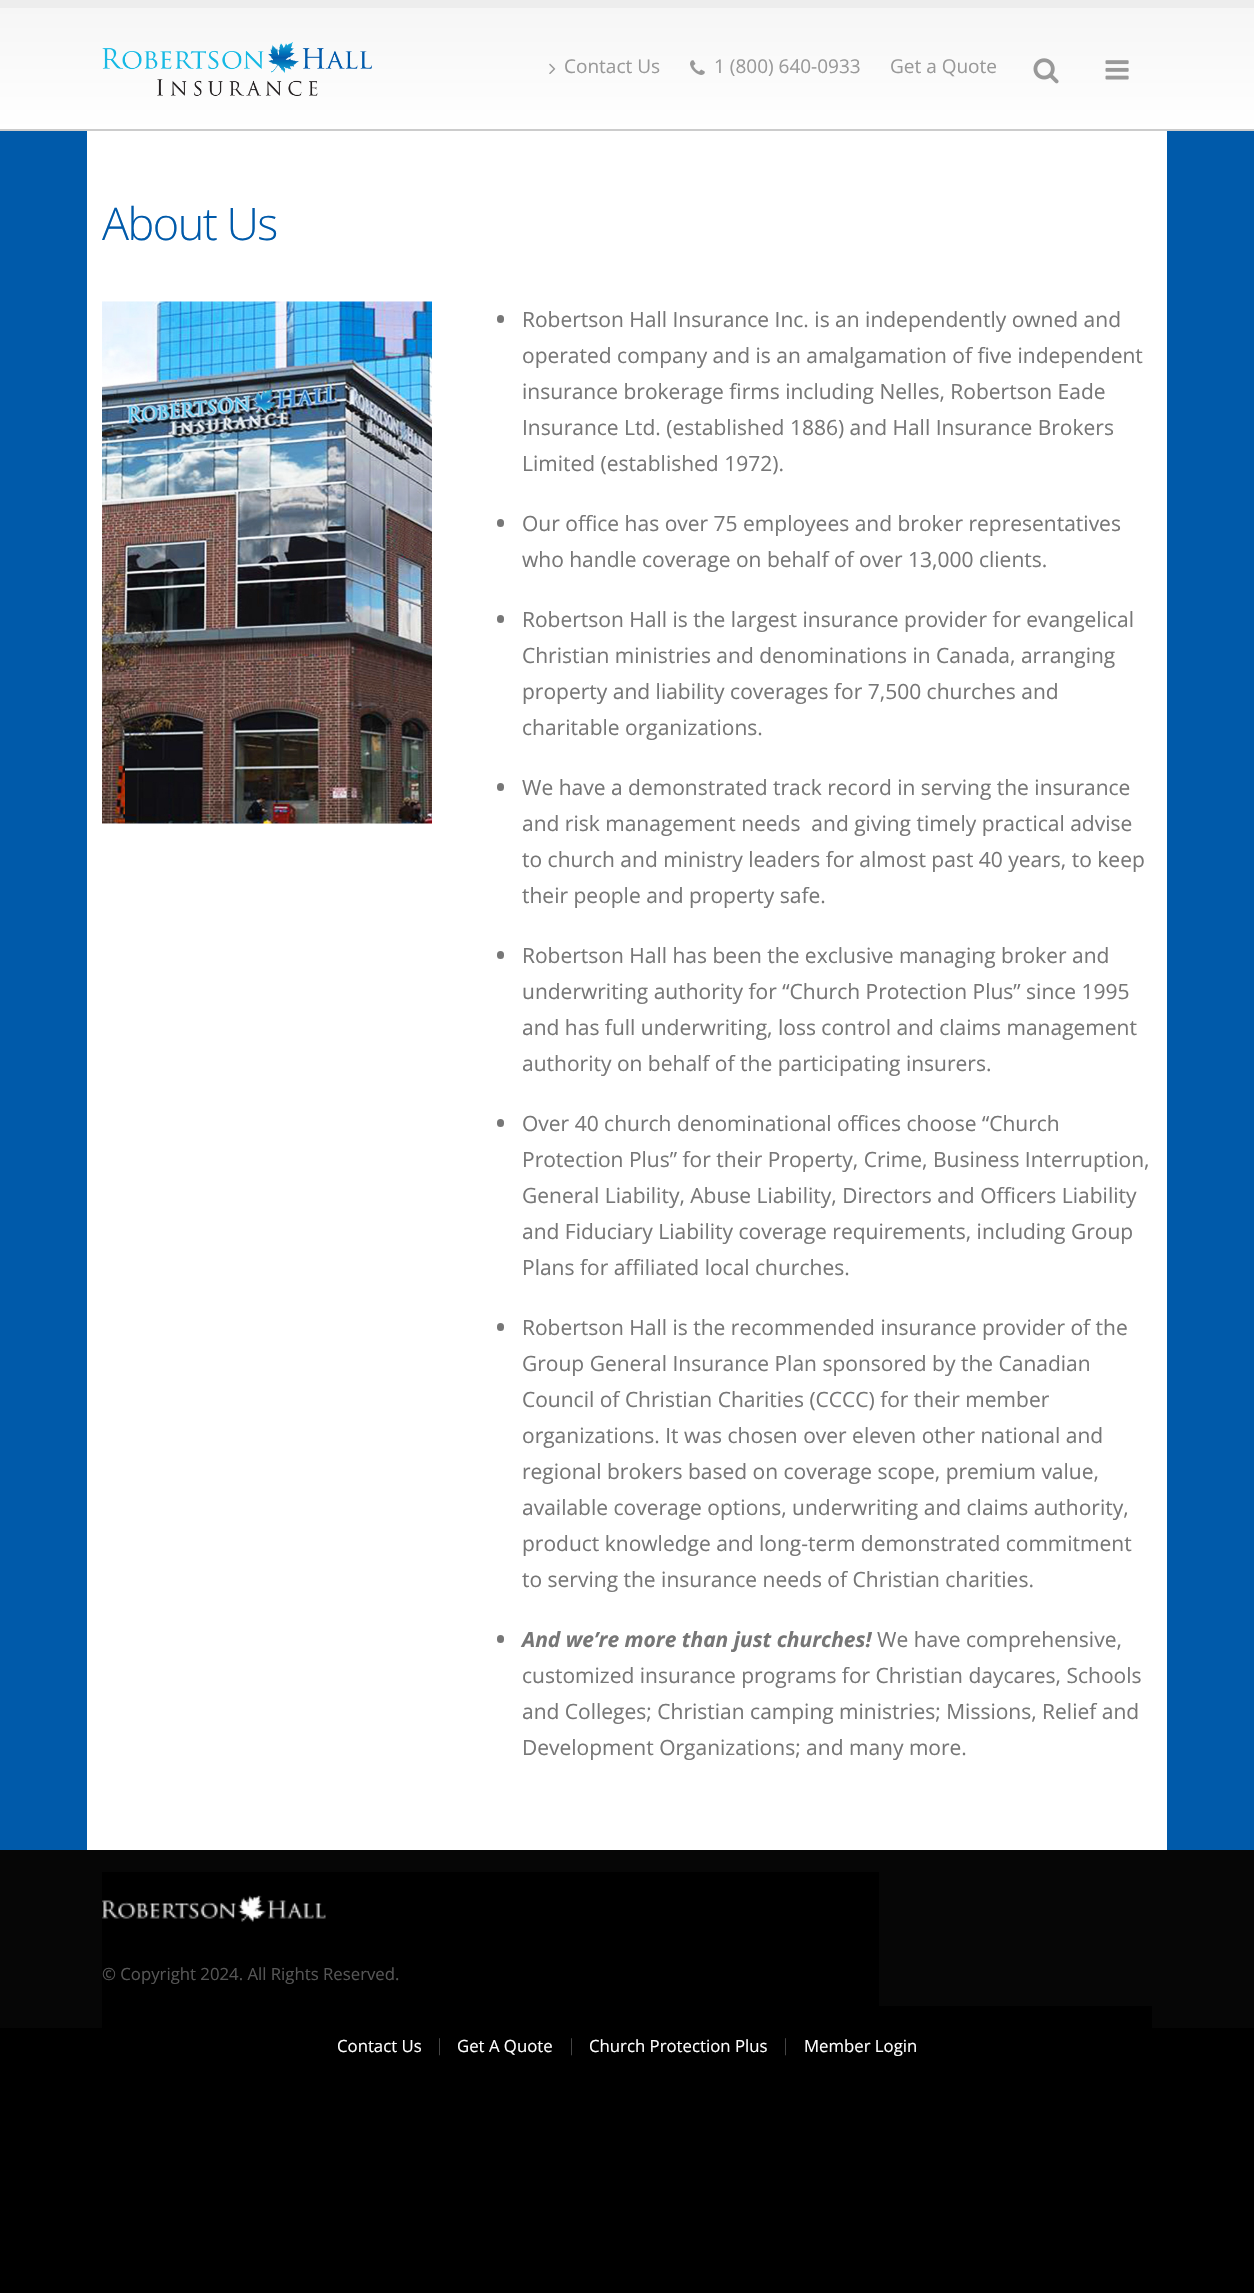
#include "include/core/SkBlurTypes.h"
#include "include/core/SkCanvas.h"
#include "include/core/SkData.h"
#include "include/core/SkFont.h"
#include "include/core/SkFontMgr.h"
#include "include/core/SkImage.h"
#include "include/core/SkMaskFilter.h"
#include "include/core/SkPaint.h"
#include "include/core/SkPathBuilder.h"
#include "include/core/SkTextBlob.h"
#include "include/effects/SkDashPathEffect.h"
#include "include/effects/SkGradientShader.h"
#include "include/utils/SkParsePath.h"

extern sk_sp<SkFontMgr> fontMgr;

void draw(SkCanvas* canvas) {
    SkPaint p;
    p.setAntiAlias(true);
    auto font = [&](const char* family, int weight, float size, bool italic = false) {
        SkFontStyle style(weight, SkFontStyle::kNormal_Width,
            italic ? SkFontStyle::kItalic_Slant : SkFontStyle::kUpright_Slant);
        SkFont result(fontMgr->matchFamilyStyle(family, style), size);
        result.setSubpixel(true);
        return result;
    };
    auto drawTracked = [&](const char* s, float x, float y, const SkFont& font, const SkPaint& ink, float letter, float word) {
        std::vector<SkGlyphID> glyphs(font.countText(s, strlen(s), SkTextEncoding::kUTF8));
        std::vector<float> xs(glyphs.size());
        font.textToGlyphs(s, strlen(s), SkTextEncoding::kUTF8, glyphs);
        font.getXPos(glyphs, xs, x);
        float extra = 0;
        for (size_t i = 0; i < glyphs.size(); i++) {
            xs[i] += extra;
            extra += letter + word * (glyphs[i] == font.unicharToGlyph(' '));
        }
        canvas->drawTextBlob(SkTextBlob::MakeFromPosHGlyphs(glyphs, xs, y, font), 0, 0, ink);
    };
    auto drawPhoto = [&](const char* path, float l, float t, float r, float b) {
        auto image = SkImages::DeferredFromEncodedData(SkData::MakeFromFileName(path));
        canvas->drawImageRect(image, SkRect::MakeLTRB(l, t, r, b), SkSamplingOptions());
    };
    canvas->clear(0xFF000000);
    {
        const SkColor colors[] = {0xFFF6F6F6, 0xFFFFFFFF};
        const float stops[] = {0, 1};
        const SkPoint ends[] = {{627, 7.5f}, {627, 131}};
        p.setShader(SkGradientShader::MakeLinear(ends, colors, stops, 2, SkTileMode::kClamp));
        p.setAlpha(255);
    }
    canvas->drawRect(SkRect::MakeLTRB(0, 8, 1254, 129), p);
    p.setShader(nullptr);
    p.setColor(0xFFEDEDED);
    canvas->drawRect(SkRect::MakeLTRB(0, 0, 1254, 8), p);
    p.setColor(0xFFCCCCCC);
    canvas->drawRect(SkRect::MakeLTRB(0, 129, 1254, 131), p);
    drawPhoto("media/1.png", 102, 42, 372, 96);
    drawPhoto("media/2.png", 549, 63, 556, 74);
    auto font1 = font("Open Sans", 400, 19);
    p.setColor(0xFF999999);
    canvas->drawString("Contact Us", 564, 73, font1, p);
    drawPhoto("media/3.png", 690, 60, 705, 75);
    canvas->drawString("1 (800) 640-0933", 714, 73, font1, p);
    canvas->drawString("Get a Quote", 890, 73, font1, p);
    drawPhoto("media/4.png", 1033, 58, 1059, 84);
    drawPhoto("media/5.png", 1105, 60, 1129, 80);
    p.setColor(0xFF005AAA);
    canvas->drawRect(SkRect::MakeLTRB(0, 131, 1254, 1850), p);
    p.setColor(0xFFFFFFFF);
    canvas->drawRect(SkRect::MakeLTRB(87, 131, 1167, 1850), p);
    auto font2 = font("Open Sans", 300, 45);
    p.setColor(0xFF005AAA);
    drawTracked("About Us", 102, 240, font2, p, -1.5f, 0);
    drawPhoto("media/6.png", 102, 301, 432, 824);
    p.setColor(0xFF777777);
    canvas->drawRoundRect(SkRect::MakeLTRB(497, 315, 504, 323), 3.5f, 3.5f, p);
    auto font3 = font("Open Sans", 400, 21);
    {
        const struct { const char* s; float x, y; } items[] = {
            {"Robertson Hall Insurance Inc. is an independently owned and", 522, 327},
            {"operated company and is an amalgamation of five independent", 522, 363},
            {"insurance brokerage firms including Nelles, Robertson Eade", 522, 399},
            {"Insurance Ltd. (established 1886) and Hall Insurance Brokers", 522, 435},
            {"Limited (established 1972).", 522, 471},
        };
        for (auto [s, x, y] : items) {
            canvas->drawString(s, x, y, font3, p);
        }
    }
    canvas->drawRoundRect(SkRect::MakeLTRB(497, 519, 504, 527), 3.5f, 3.5f, p);
    canvas->drawString("Our office has over 75 employees and broker representatives", 522, 531, font3, p);
    canvas->drawString("who handle coverage on behalf of over 13,000 clients.", 522, 567, font3, p);
    canvas->drawRoundRect(SkRect::MakeLTRB(497, 615, 504, 623), 3.5f, 3.5f, p);
    {
        const struct { const char* s; float x, y; } items[] = {
            {"Robertson Hall is the largest insurance provider for evangelical", 522, 627},
            {"Christian ministries and denominations in Canada, arranging", 522, 663},
            {"property and liability coverages for 7,500 churches and", 522, 699},
            {"charitable organizations.", 522, 735},
        };
        for (auto [s, x, y] : items) {
            canvas->drawString(s, x, y, font3, p);
        }
    }
    canvas->drawRoundRect(SkRect::MakeLTRB(497, 783, 504, 791), 3.5f, 3.5f, p);
    {
        const struct { const char* s; float x, y; } items[] = {
            {"We have a demonstrated track record in serving the insurance", 522, 795},
            {"and risk management needs  and giving timely practical advise", 522, 831},
            {"to church and ministry leaders for almost past 40 years, to keep", 522, 867},
            {"their people and property safe.", 522, 903},
        };
        for (auto [s, x, y] : items) {
            canvas->drawString(s, x, y, font3, p);
        }
    }
    canvas->drawRoundRect(SkRect::MakeLTRB(497, 951, 504, 959), 3.5f, 3.5f, p);
    {
        const struct { const char* s; float x, y; } items[] = {
            {"Robertson Hall has been the exclusive managing broker and", 522, 963},
            {"underwriting authority for “Church Protection Plus” since 1995", 522, 999},
            {"and has full underwriting, loss control and claims management", 522, 1035},
            {"authority on behalf of the participating insurers.", 522, 1071},
        };
        for (auto [s, x, y] : items) {
            canvas->drawString(s, x, y, font3, p);
        }
    }
    canvas->drawRoundRect(SkRect::MakeLTRB(497, 1119, 504, 1127), 3.5f, 3.5f, p);
    {
        const struct { const char* s; float x, y; } items[] = {
            {"Over 40 church denominational offices choose “Church", 522, 1131},
            {"Protection Plus” for their Property, Crime, Business Interruption,", 522, 1167},
            {"General Liability, Abuse Liability, Directors and Officers Liability", 522, 1203},
            {"and Fiduciary Liability coverage requirements, including Group", 522, 1239},
            {"Plans for affiliated local churches.", 522, 1275},
        };
        for (auto [s, x, y] : items) {
            canvas->drawString(s, x, y, font3, p);
        }
    }
    canvas->drawRoundRect(SkRect::MakeLTRB(497, 1323, 504, 1331), 3.5f, 3.5f, p);
    {
        const struct { const char* s; float x, y; } items[] = {
            {"Robertson Hall is the recommended insurance provider of the", 522, 1335},
            {"Group General Insurance Plan sponsored by the Canadian", 522, 1371},
            {"Council of Christian Charities (CCCC) for their member", 522, 1407},
            {"organizations. It was chosen over eleven other national and", 522, 1443},
            {"regional brokers based on coverage scope, premium value,", 522, 1479},
            {"available coverage options, underwriting and claims authority,", 522, 1515},
            {"product knowledge and long-term demonstrated commitment", 522, 1551},
            {"to serving the insurance needs of Christian charities.", 522, 1587},
        };
        for (auto [s, x, y] : items) {
            canvas->drawString(s, x, y, font3, p);
        }
    }
    canvas->drawRoundRect(SkRect::MakeLTRB(497, 1635, 504, 1643), 3.5f, 3.5f, p);
    auto font4 = font("Open Sans", 700, 21, true);
    canvas->drawString("And we’re more than just churches!", 522, 1647, font4, p);
    {
        const struct { const char* s; float x, y; } items[] = {
            {"We have comprehensive,", 877, 1647},
            {"customized insurance programs for Christian daycares, Schools", 522, 1683},
            {"and Colleges; Christian camping ministries; Missions, Relief and", 522, 1719},
            {"Development Organizations; and many more.", 522, 1755},
        };
        for (auto [s, x, y] : items) {
            canvas->drawString(s, x, y, font3, p);
        }
    }
    p.setColor(0xFF060606);
    canvas->drawRect(SkRect::MakeLTRB(0, 1850, 1254, 2028), p);
    p.setColor(0xFF000000);
    canvas->drawRect(SkRect::MakeLTRB(102, 1872, 879, 2006), p);
    drawPhoto("media/7.png", 102, 1895, 326, 1922);
    auto font5 = font("Open Sans", 400, 16.75f);
    p.setColor(0xFF555555);
    canvas->drawString("© Copyright 2024. All Rights Reserved.", 102, 1980, font5, p);
    p.setColor(0xFF000000);
    canvas->drawRect(SkRect::MakeLTRB(102, 2006, 1152, 2028), p);
    p.setColor(0xFFFFFFFF);
    canvas->drawString("Contact Us", 337, 2052, font5, p);
    auto font6 = font("Open Sans", 300, 16.75f);
    p.setColor(0xFF555555);
    canvas->drawString("|", 435, 2051, font6, p);
    p.setColor(0xFFFFFFFF);
    canvas->drawString("Get A Quote", 457, 2052, font5, p);
    p.setColor(0xFF555555);
    canvas->drawString("|", 567, 2051, font6, p);
    p.setColor(0xFFFFFFFF);
    canvas->drawString("Church Protection Plus", 589, 2052, font5, p);
    p.setColor(0xFF555555);
    canvas->drawString("|", 781, 2051, font6, p);
    p.setColor(0xFFFFFFFF);
    canvas->drawString("Member Login", 804, 2052, font5, p);
}
